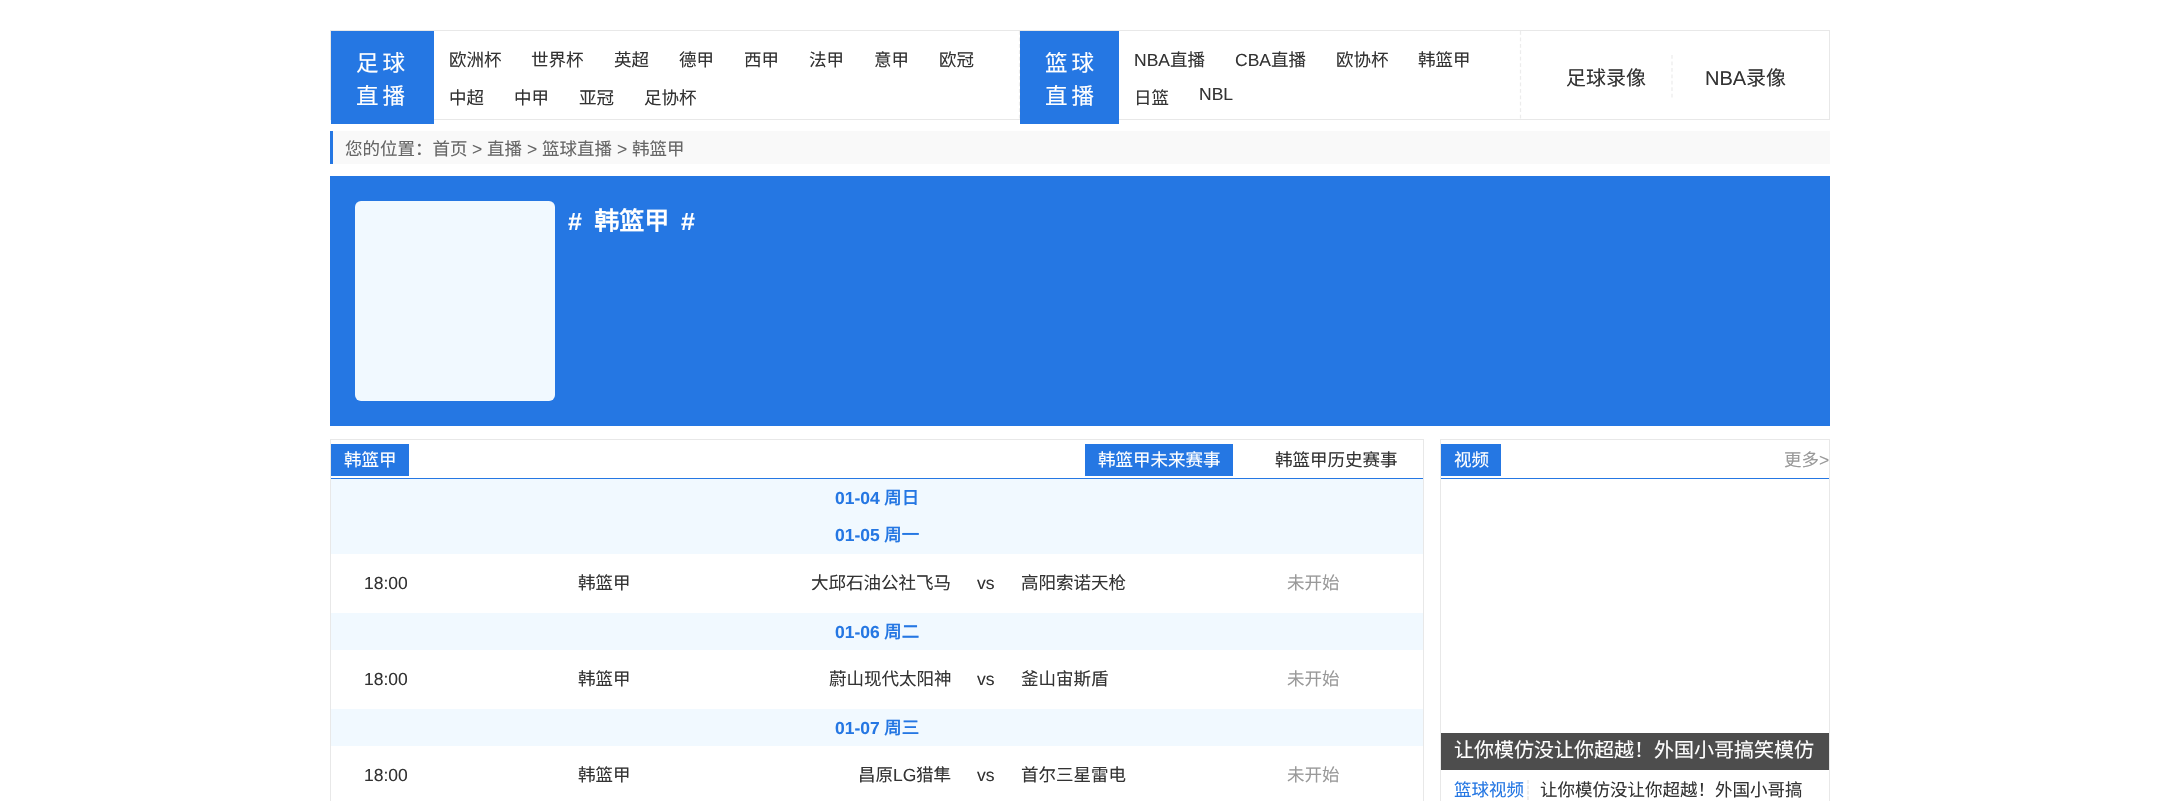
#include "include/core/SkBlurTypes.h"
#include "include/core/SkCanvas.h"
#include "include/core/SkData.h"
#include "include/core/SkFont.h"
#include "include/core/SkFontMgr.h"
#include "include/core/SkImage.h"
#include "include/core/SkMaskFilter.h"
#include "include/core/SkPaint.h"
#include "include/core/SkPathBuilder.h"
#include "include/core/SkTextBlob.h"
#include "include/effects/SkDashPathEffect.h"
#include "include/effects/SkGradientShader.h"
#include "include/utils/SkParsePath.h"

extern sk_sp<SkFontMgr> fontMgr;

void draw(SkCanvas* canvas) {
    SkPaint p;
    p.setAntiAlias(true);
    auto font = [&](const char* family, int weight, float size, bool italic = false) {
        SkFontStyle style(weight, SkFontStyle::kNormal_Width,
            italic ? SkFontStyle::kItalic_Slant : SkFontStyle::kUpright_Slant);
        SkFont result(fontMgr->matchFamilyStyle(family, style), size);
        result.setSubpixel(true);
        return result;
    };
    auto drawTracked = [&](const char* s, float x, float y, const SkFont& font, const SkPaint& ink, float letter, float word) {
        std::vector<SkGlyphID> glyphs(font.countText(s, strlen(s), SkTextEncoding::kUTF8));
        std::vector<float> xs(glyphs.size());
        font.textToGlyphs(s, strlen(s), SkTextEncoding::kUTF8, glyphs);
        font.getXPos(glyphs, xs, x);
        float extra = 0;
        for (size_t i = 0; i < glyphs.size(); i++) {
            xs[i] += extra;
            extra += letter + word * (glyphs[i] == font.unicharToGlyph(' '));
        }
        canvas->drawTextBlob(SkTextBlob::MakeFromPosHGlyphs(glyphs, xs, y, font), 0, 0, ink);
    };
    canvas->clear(0xFFFFFFFF);
    p.setStyle(SkPaint::kStroke_Style);
    p.setStrokeWidth(1);
    p.setColor(0xFFE8E8E8);
    canvas->drawRect(SkRect::MakeLTRB(330.5f, 30.5f, 1829.5f, 119.5f), p);
    p.setStyle(SkPaint::kFill_Style);
    p.setColor(0xFF2577E3);
    canvas->drawRect(SkRect::MakeLTRB(331, 31, 434, 124), p);
    auto font1 = font("Noto Sans CJK SC", 400, 22.5f);
    p.setColor(0xFFFFFFFF);
    drawTracked("足球", 356, 71, font1, p, 4, 0);
    drawTracked("直播", 356, 104, font1, p, 4, 0);
    auto font2 = font("Noto Sans CJK SC", 400, 17.5f);
    p.setColor(0xFF333333);
    {
        const struct { const char* s; float x, y; } items[] = {
            {"欧洲杯", 449, 66},
            {"世界杯", 531, 66},
            {"英超", 614, 66},
            {"德甲", 679, 66},
            {"西甲", 744, 66},
            {"法甲", 809, 66},
            {"意甲", 874, 66},
            {"欧冠", 939, 66},
            {"中超", 449, 104},
            {"中甲", 514, 104},
            {"亚冠", 579, 104},
            {"足协杯", 644, 104},
        };
        for (auto [s, x, y] : items) {
            canvas->drawString(s, x, y, font2, p);
        }
    }
    p.setStyle(SkPaint::kStroke_Style);
    p.setStrokeWidth(1.2f);
    p.setColor(0xFFECECEC);
    p.setPathEffect(SkDashPathEffect::Make({{3.75f, 2.69f}}, 0));
    canvas->drawPath(SkPathBuilder().moveTo(1520.5f, 31).lineTo(1520.5f, 119).detach(), p);
    p.setPathEffect(nullptr);
    p.setPathEffect(SkDashPathEffect::Make({{3.75f, 2.69f}}, 0));
    canvas->drawPath(SkPathBuilder().moveTo(1019.5f, 31).lineTo(1019.5f, 119).detach(), p);
    p.setPathEffect(nullptr);
    p.setStyle(SkPaint::kFill_Style);
    p.setColor(0xFF2577E3);
    canvas->drawRect(SkRect::MakeLTRB(1020, 31, 1119, 124), p);
    p.setColor(0xFFFFFFFF);
    drawTracked("篮球", 1045, 71, font1, p, 4, 0);
    drawTracked("直播", 1045, 104, font1, p, 4, 0);
    auto font3 = font("Liberation Sans", 400, 17.5f);
    p.setColor(0xFF333333);
    canvas->drawString("NBA", 1134, 66, font3, p);
    canvas->drawString("直播", 1170, 66, font2, p);
    canvas->drawString("CBA", 1235, 66, font3, p);
    {
        const struct { const char* s; float x, y; } items[] = {
            {"直播", 1271, 66},
            {"欧协杯", 1336, 66},
            {"韩篮甲", 1418, 66},
            {"日篮", 1134, 104},
        };
        for (auto [s, x, y] : items) {
            canvas->drawString(s, x, y, font2, p);
        }
    }
    canvas->drawString("NBL", 1199, 100, font3, p);
    p.setStyle(SkPaint::kStroke_Style);
    p.setColor(0xFFECECEC);
    p.setPathEffect(SkDashPathEffect::Make({{3.75f, 2.71f}}, 0));
    canvas->drawPath(SkPathBuilder().moveTo(1672, 55).lineTo(1672, 97.5f).detach(), p);
    p.setPathEffect(nullptr);
    auto font4 = font("Noto Sans CJK SC", 400, 20);
    p.setStyle(SkPaint::kFill_Style);
    p.setColor(0xFF333333);
    canvas->drawString("足球录像", 1566, 85, font4, p);
    auto font5 = font("Liberation Sans", 400, 20);
    canvas->drawString("NBA", 1705, 85, font5, p);
    canvas->drawString("录像", 1746, 85, font4, p);
    p.setColor(0xFFF9F9F9);
    canvas->drawRect(SkRect::MakeLTRB(333, 131, 1830, 164), p);
    p.setColor(0xFF2577E3);
    canvas->drawRect(SkRect::MakeLTRB(330, 131, 333, 164), p);
    p.setColor(0xFF666666);
    canvas->drawString("您的位置：首页", 345, 155, font2, p);
    canvas->drawString(">", 472, 155, font3, p);
    canvas->drawString("直播", 487, 155, font2, p);
    canvas->drawString(">", 527, 155, font3, p);
    canvas->drawString("篮球直播", 542, 155, font2, p);
    canvas->drawString(">", 617, 155, font3, p);
    canvas->drawString("韩篮甲", 632, 155, font2, p);
    p.setColor(0xFF2577E3);
    canvas->drawRect(SkRect::MakeLTRB(330, 176, 1830, 426), p);
    p.setColor(0xFFF1F9FF);
    canvas->drawRoundRect(SkRect::MakeLTRB(355, 201, 555, 401), 6, 6, p);
    auto font6 = font("Liberation Sans", 700, 25);
    p.setColor(0xFFFFFFFF);
    canvas->drawString("#", 568, 230, font6, p);
    auto font7 = font("Noto Sans CJK SC", 700, 25);
    canvas->drawString("韩篮甲", 594, 230, font7, p);
    canvas->drawString("#", 681, 230, font6, p);
    p.setStyle(SkPaint::kStroke_Style);
    p.setStrokeWidth(1);
    p.setColor(0xFFE8E8E8);
    canvas->drawRect(SkRect::MakeLTRB(330.5f, 439.5f, 1423.5f, 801.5f), p);
    p.setStyle(SkPaint::kFill_Style);
    p.setColor(0xFF2577E3);
    canvas->drawRect(SkRect::MakeLTRB(331, 478, 1423, 479), p);
    canvas->drawRect(SkRect::MakeLTRB(331, 444, 409, 476), p);
    p.setColor(0xFFFFFFFF);
    canvas->drawString("韩篮甲", 344, 466, font2, p);
    p.setColor(0xFF2577E3);
    canvas->drawRect(SkRect::MakeLTRB(1085, 444, 1233, 476), p);
    p.setColor(0xFFFFFFFF);
    canvas->drawString("韩篮甲未来赛事", 1098, 466, font2, p);
    p.setColor(0xFF333333);
    canvas->drawString("韩篮甲历史赛事", 1275, 466, font2, p);
    p.setColor(0xFFF1F9FF);
    canvas->drawRect(SkRect::MakeLTRB(331, 479, 1423, 554), p);
    auto font8 = font("Liberation Sans", 700, 17.5f);
    p.setColor(0xFF2577E3);
    canvas->drawString("01-04", 835, 504, font8, p);
    auto font9 = font("Noto Sans CJK SC", 700, 17.5f);
    canvas->drawString("周日", 884, 504, font9, p);
    canvas->drawString("01-05", 835, 541, font8, p);
    canvas->drawString("周一", 884, 541, font9, p);
    p.setColor(0xFF333333);
    canvas->drawString("18:00", 364, 589, font3, p);
    canvas->drawString("韩篮甲", 578, 589, font2, p);
    canvas->drawString("大邱石油公社飞马", 811, 589, font2, p);
    canvas->drawString("vs", 977, 589, font3, p);
    canvas->drawString("高阳索诺天枪", 1021, 589, font2, p);
    p.setColor(0xFF999999);
    canvas->drawString("未开始", 1287, 589, font2, p);
    p.setColor(0xFFF1F9FF);
    canvas->drawRect(SkRect::MakeLTRB(331, 613, 1423, 650), p);
    p.setColor(0xFF2577E3);
    canvas->drawString("01-06", 835, 638, font8, p);
    canvas->drawString("周二", 884, 638, font9, p);
    p.setColor(0xFF333333);
    canvas->drawString("18:00", 364, 685, font3, p);
    canvas->drawString("韩篮甲", 578, 685, font2, p);
    canvas->drawString("蔚山现代太阳神", 829, 685, font2, p);
    canvas->drawString("vs", 977, 685, font3, p);
    canvas->drawString("釜山宙斯盾", 1021, 685, font2, p);
    p.setColor(0xFF999999);
    canvas->drawString("未开始", 1287, 685, font2, p);
    p.setColor(0xFFF1F9FF);
    canvas->drawRect(SkRect::MakeLTRB(331, 709, 1423, 746), p);
    p.setColor(0xFF2577E3);
    canvas->drawString("01-07", 835, 734, font8, p);
    canvas->drawString("周三", 884, 734, font9, p);
    p.setColor(0xFF333333);
    canvas->drawString("18:00", 364, 781, font3, p);
    canvas->drawString("韩篮甲", 578, 781, font2, p);
    canvas->drawString("昌原", 858, 781, font2, p);
    canvas->drawString("LG", 893, 781, font3, p);
    canvas->drawString("猎隼", 916, 781, font2, p);
    canvas->drawString("vs", 977, 781, font3, p);
    canvas->drawString("首尔三星雷电", 1021, 781, font2, p);
    p.setColor(0xFF999999);
    canvas->drawString("未开始", 1287, 781, font2, p);
    p.setStyle(SkPaint::kStroke_Style);
    p.setColor(0xFFE8E8E8);
    canvas->drawRect(SkRect::MakeLTRB(1440.5f, 439.5f, 1829.5f, 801.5f), p);
    p.setStyle(SkPaint::kFill_Style);
    p.setColor(0xFF2577E3);
    canvas->drawRect(SkRect::MakeLTRB(1441, 478, 1829, 479), p);
    canvas->drawRect(SkRect::MakeLTRB(1441, 444, 1501, 476), p);
    p.setColor(0xFFFFFFFF);
    canvas->drawString("视频", 1454, 466, font2, p);
    p.setColor(0xFF999999);
    canvas->drawString("更多", 1784, 466, font2, p);
    canvas->drawString(">", 1819, 466, font3, p);
    p.setColor(0xFF4D4D4D);
    canvas->drawRect(SkRect::MakeLTRB(1441, 733, 1829, 770), p);
    p.setColor(0xFFFFFFFF);
    canvas->drawString("让你模仿没让你超越！外国小哥搞笑模仿", 1454, 757, font4, p);
    p.setColor(0xFF2577E3);
    canvas->drawString("篮球视频", 1454, 796, font2, p);
    p.setStyle(SkPaint::kStroke_Style);
    p.setStrokeWidth(1.2f);
    p.setColor(0xFFE2E2E2);
    p.setPathEffect(SkDashPathEffect::Make({{3.75f, 1.66f}}, 0));
    canvas->drawPath(SkPathBuilder().moveTo(1528, 780).lineTo(1528, 800).detach(), p);
    p.setPathEffect(nullptr);
    p.setStyle(SkPaint::kFill_Style);
    p.setColor(0xFF333333);
    canvas->drawString("让你模仿没让你超越！外国小哥搞", 1540, 796, font2, p);
}
